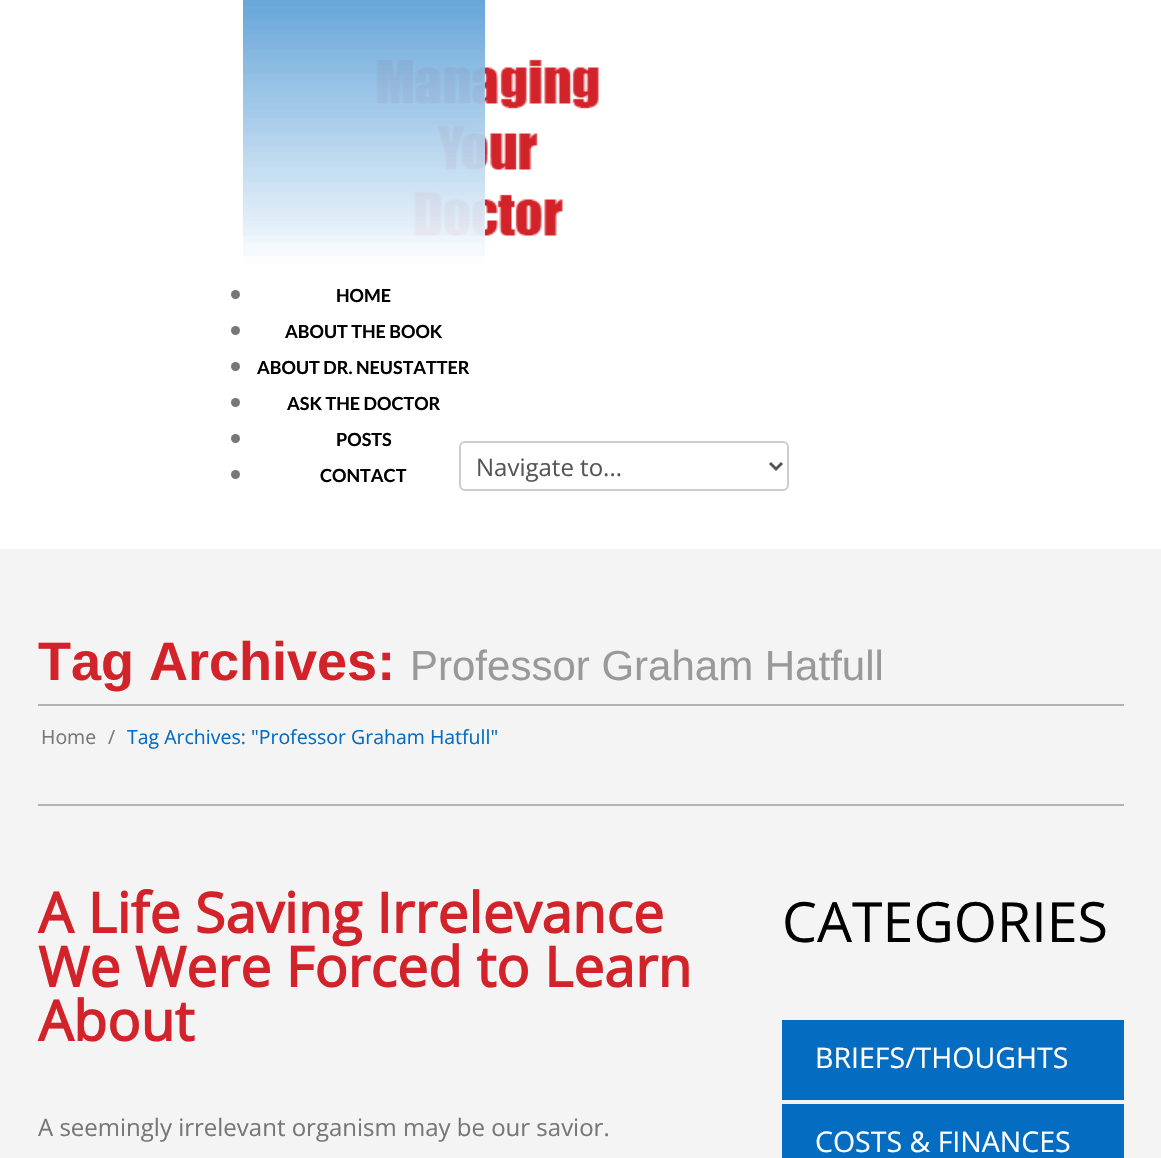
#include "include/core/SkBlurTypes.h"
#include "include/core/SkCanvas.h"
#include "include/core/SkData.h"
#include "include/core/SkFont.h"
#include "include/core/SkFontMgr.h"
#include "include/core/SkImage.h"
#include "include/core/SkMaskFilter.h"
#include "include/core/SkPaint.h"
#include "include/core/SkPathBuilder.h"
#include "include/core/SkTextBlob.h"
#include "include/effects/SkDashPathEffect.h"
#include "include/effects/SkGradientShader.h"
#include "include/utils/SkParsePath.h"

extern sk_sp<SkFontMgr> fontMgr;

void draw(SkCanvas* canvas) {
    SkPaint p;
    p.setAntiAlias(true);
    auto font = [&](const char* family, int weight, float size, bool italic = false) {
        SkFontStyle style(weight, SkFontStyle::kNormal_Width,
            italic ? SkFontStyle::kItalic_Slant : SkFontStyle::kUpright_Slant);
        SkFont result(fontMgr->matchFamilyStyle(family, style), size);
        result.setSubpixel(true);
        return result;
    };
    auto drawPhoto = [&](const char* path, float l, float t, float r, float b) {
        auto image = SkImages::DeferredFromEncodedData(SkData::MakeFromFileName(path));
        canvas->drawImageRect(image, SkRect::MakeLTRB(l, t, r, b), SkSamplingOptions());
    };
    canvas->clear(0xFFF4F4F4);
    p.setColor(0xFFFFFFFF);
    canvas->drawRect(SkRect::MakeLTRB(0, 0, 1161, 549), p);
    drawPhoto("media/1.png", 376, 59, 599, 236);
    p.setColor(0xFF777777);
    canvas->drawCircle(235.5f, 294.5f, 4.5f, p);
    {
        const SkColor colors[] = {0x66FFFFFF, 0x66046CC1};
        const float stops[] = {0, 1};
        const SkPoint ends[] = {{364, 275}, {364, -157}};
        p.setShader(SkGradientShader::MakeLinear(ends, colors, stops, 2, SkTileMode::kClamp));
        p.setAlpha(255);
    }
    canvas->drawRect(SkRect::MakeLTRB(243, 0, 485, 264), p);
    auto font1 = font("Lato", 700, 18);
    p.setShader(nullptr);
    p.setColor(0xFF000000);
    canvas->drawString("HOME", 336, 302, font1, p);
    p.setColor(0xFF777777);
    canvas->drawCircle(235.5f, 330.5f, 4.5f, p);
    {
        const SkColor colors[] = {0x66FFFFFF, 0x66046CC1};
        const float stops[] = {0, 1};
        const SkPoint ends[] = {{364, 275}, {364, -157}};
        p.setShader(SkGradientShader::MakeLinear(ends, colors, stops, 2, SkTileMode::kClamp));
        p.setAlpha(255);
    }
    canvas->drawRect(SkRect::MakeLTRB(243, 0, 485, 256), p);
    p.setShader(nullptr);
    p.setColor(0xFF000000);
    canvas->drawString("ABOUT THE BOOK", 285, 338, font1, p);
    p.setColor(0xFF777777);
    canvas->drawCircle(235.5f, 366.5f, 4.5f, p);
    {
        const SkColor colors[] = {0x66FFFFFF, 0x66046CC1};
        const float stops[] = {0, 1};
        const SkPoint ends[] = {{364, 275}, {364, -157}};
        p.setShader(SkGradientShader::MakeLinear(ends, colors, stops, 2, SkTileMode::kClamp));
        p.setAlpha(255);
    }
    canvas->drawRect(SkRect::MakeLTRB(243, 0, 485, 243), p);
    p.setShader(nullptr);
    p.setColor(0xFF000000);
    canvas->drawString("ABOUT DR. NEUSTATTER", 257, 374, font1, p);
    p.setColor(0xFF777777);
    canvas->drawCircle(235.5f, 402.5f, 4.5f, p);
    {
        const SkColor colors[] = {0x66FFFFFF, 0x66046CC1};
        const float stops[] = {0, 1};
        const SkPoint ends[] = {{364, 275}, {364, -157}};
        p.setShader(SkGradientShader::MakeLinear(ends, colors, stops, 2, SkTileMode::kClamp));
        p.setAlpha(255);
    }
    canvas->drawRect(SkRect::MakeLTRB(243, 0, 485, 236), p);
    p.setShader(nullptr);
    p.setColor(0xFF000000);
    canvas->drawString("ASK THE DOCTOR", 287, 410, font1, p);
    p.setColor(0xFF777777);
    canvas->drawCircle(235.5f, 438.5f, 4.5f, p);
    {
        const SkColor colors[] = {0x66FFFFFF, 0x66046CC1};
        const float stops[] = {0, 1};
        const SkPoint ends[] = {{364, 275}, {364, -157}};
        p.setShader(SkGradientShader::MakeLinear(ends, colors, stops, 2, SkTileMode::kClamp));
        p.setAlpha(255);
    }
    canvas->drawRect(SkRect::MakeLTRB(243, 0, 485, 236), p);
    p.setShader(nullptr);
    p.setColor(0xFF000000);
    canvas->drawString("POSTS", 336, 446, font1, p);
    p.setColor(0xFF777777);
    canvas->drawCircle(235.5f, 474.5f, 4.5f, p);
    {
        const SkColor colors[] = {0x66FFFFFF, 0x66046CC1};
        const float stops[] = {0, 1};
        const SkPoint ends[] = {{364, 275}, {364, -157}};
        p.setShader(SkGradientShader::MakeLinear(ends, colors, stops, 2, SkTileMode::kClamp));
        p.setAlpha(255);
    }
    canvas->drawRect(SkRect::MakeLTRB(243, 0, 485, 236), p);
    p.setShader(nullptr);
    p.setColor(0xFF000000);
    canvas->drawString("CONTACT", 320, 482, font1, p);
    p.setStyle(SkPaint::kStroke_Style);
    p.setStrokeWidth(2);
    p.setColor(0xFFCCCCCC);
    canvas->drawRoundRect(SkRect::MakeLTRB(460, 442, 788, 490), 5, 5, p);
    p.setStrokeWidth(3);
    p.setColor(0xFF555555);
    canvas->drawPath(SkPathBuilder().moveTo(770, 463).lineTo(776, 469).lineTo(782, 463).detach(), p);
    auto font2 = font("Open Sans", 400, 24);
    p.setStyle(SkPaint::kFill_Style);
    canvas->drawString("Navigate to...", 476, 476, font2, p);
    p.setColor(0xFFB3B3B3);
    canvas->drawRect(SkRect::MakeLTRB(38, 804, 1124, 806), p);
    auto font3 = font("Liberation Sans", 700, 54);
    p.setColor(0xFFD2232A);
    canvas->drawString("Tag Archives:", 38, 680, font3, p);
    auto font4 = font("Liberation Sans", 400, 42);
    p.setColor(0xFF999999);
    canvas->drawString("Professor Graham Hatfull", 410, 680, font4, p);
    p.setColor(0xFFB3B3B3);
    canvas->drawRect(SkRect::MakeLTRB(38, 704, 1124, 706), p);
    auto font5 = font("Open Sans", 400, 19.5f);
    p.setColor(0xFF777777);
    canvas->drawString("Home", 41, 744, font5, p);
    canvas->drawString("/", 108, 744, font5, p);
    p.setColor(0xFF046CC1);
    canvas->drawString("Tag Archives: \"Professor Graham Hatfull\"", 127, 744, font5, p);
    auto font6 = font("Open Sans", 700, 55.5f);
    p.setColor(0xFFD2232A);
    {
        const struct { const char* s; float x, y; } items[] = {
            {"A Life Saving Irrelevance", 38, 933},
            {"We Were Forced to Learn", 38, 987},
            {"About", 38, 1041},
        };
        for (auto [s, x, y] : items) {
            canvas->drawString(s, x, y, font6, p);
        }
    }
    p.setColor(0xFF777777);
    canvas->drawString("A seemingly irrelevant organism may be our savior.", 38, 1136, font2, p);
    auto font7 = font("Open Sans", 400, 55.5f);
    p.setColor(0xFF000000);
    canvas->drawString("CATEGORIES", 782, 942, font7, p);
    p.setColor(0xFF046CC1);
    canvas->drawRect(SkRect::MakeLTRB(782, 1020, 1124, 1100), p);
    auto font8 = font("Open Sans", 400, 28.5f);
    p.setColor(0xFFFFFFFF);
    canvas->drawString("BRIEFS/THOUGHTS", 815, 1068, font8, p);
    p.setColor(0xFF046CC1);
    canvas->drawRect(SkRect::MakeLTRB(782, 1104, 1124, 1158), p);
    p.setColor(0xFFFFFFFF);
    canvas->drawString("COSTS & FINANCES", 815, 1152, font8, p);
}
